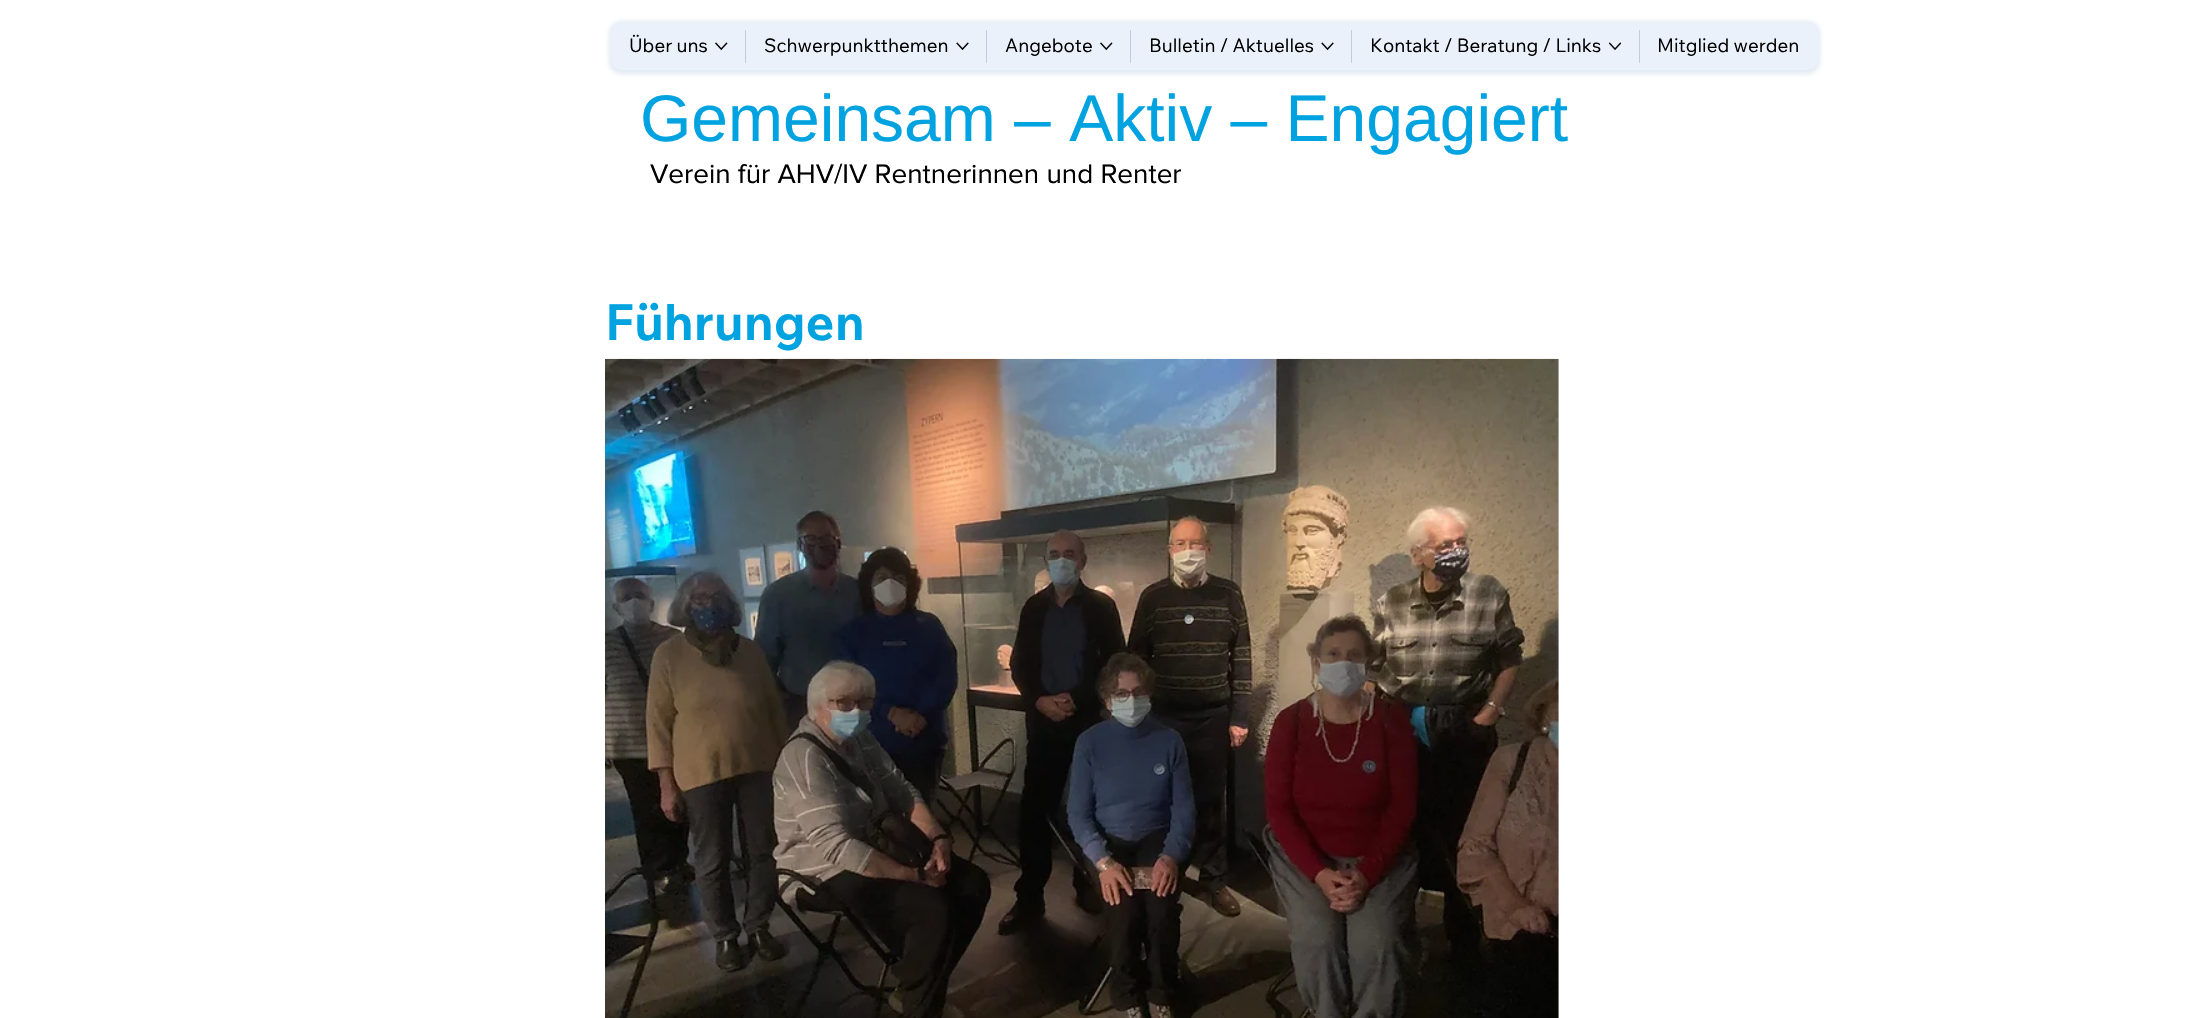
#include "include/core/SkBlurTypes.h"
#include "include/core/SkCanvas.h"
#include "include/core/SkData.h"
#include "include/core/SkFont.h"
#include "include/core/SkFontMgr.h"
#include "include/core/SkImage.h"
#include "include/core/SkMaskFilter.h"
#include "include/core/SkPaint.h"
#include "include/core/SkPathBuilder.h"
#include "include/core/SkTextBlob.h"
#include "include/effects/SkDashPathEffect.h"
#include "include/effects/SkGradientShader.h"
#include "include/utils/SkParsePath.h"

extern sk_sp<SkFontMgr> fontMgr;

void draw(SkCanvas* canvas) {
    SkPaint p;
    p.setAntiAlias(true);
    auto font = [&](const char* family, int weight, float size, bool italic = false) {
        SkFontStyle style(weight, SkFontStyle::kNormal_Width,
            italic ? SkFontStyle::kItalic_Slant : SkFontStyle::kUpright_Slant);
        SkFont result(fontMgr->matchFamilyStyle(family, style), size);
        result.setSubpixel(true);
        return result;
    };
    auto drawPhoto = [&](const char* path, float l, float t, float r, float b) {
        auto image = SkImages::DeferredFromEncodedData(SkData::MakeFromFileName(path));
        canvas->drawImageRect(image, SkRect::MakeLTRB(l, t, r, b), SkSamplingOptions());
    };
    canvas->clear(0xFFFFFFFF);
    p.setColor(0x99CBDCE9);
    p.setMaskFilter(SkMaskFilter::MakeBlur(kNormal_SkBlurStyle, 2.5f));
    canvas->drawRoundRect(SkRect::MakeLTRB(609, 21, 1820, 74), 13, 13, p);
    p.setMaskFilter(nullptr);
    p.setColor(0xFFEAF1FB);
    canvas->drawRoundRect(SkRect::MakeLTRB(611, 23, 1818, 70), 10, 10, p);
    auto font1 = font("Wix Madefor Text", 400, 18.75f);
    p.setColor(0xFF000000);
    canvas->drawString("Über uns", 629, 52, font1, p);
    drawPhoto("media/1.png", 715, 42, 728, 51);
    p.setColor(0xFFBECFDB);
    canvas->drawRect(SkRect::MakeLTRB(745, 30, 746, 63), p);
    p.setColor(0xFF000000);
    canvas->drawString("Schwerpunktthemen", 764, 52, font1, p);
    drawPhoto("media/2.png", 956, 42, 969, 51);
    p.setColor(0xFFBECFDB);
    canvas->drawRect(SkRect::MakeLTRB(986, 30, 987, 63), p);
    p.setColor(0xFF000000);
    canvas->drawString("Angebote", 1005, 52, font1, p);
    drawPhoto("media/1.png", 1100, 42, 1113, 51);
    p.setColor(0xFFBECFDB);
    canvas->drawRect(SkRect::MakeLTRB(1130, 30, 1131, 63), p);
    p.setColor(0xFF000000);
    canvas->drawString("Bulletin / Aktuelles", 1149, 52, font1, p);
    drawPhoto("media/2.png", 1321, 42, 1334, 51);
    p.setColor(0xFFBECFDB);
    canvas->drawRect(SkRect::MakeLTRB(1351, 30, 1352, 63), p);
    p.setColor(0xFF000000);
    canvas->drawString("Kontakt / Beratung / Links", 1370, 52, font1, p);
    drawPhoto("media/3.png", 1609, 42, 1621, 50);
    p.setColor(0xFFBECFDB);
    canvas->drawRect(SkRect::MakeLTRB(1639, 30, 1640, 63), p);
    p.setColor(0xFF000000);
    canvas->drawString("Mitglied werden", 1657, 52, font1, p);
    auto font2 = font("Liberation Sans", 400, 66);
    p.setColor(0xFF00A3E0);
    canvas->drawString("Gemeinsam – Aktiv – Engagiert", 640, 141, font2, p);
    auto font3 = font("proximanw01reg", 400, 27.9f);
    p.setColor(0xFF000000);
    canvas->drawString("Verein für AHV/IV Rentnerinnen und Renter", 650, 183, font3, p);
    auto font4 = font("Wix Madefor Text", 700, 50);
    p.setColor(0xFF00A3E0);
    canvas->drawString("Führungen", 605, 340, font4, p);
    drawPhoto("media/4.png", 605, 358, 1559, 1018);
}
